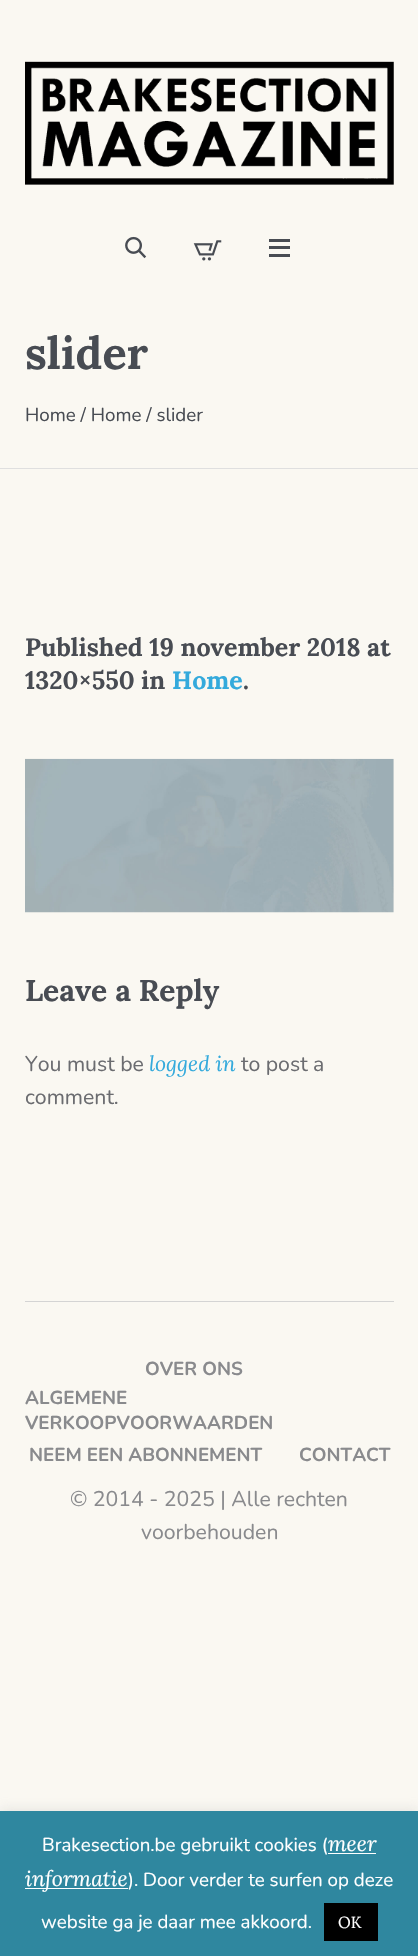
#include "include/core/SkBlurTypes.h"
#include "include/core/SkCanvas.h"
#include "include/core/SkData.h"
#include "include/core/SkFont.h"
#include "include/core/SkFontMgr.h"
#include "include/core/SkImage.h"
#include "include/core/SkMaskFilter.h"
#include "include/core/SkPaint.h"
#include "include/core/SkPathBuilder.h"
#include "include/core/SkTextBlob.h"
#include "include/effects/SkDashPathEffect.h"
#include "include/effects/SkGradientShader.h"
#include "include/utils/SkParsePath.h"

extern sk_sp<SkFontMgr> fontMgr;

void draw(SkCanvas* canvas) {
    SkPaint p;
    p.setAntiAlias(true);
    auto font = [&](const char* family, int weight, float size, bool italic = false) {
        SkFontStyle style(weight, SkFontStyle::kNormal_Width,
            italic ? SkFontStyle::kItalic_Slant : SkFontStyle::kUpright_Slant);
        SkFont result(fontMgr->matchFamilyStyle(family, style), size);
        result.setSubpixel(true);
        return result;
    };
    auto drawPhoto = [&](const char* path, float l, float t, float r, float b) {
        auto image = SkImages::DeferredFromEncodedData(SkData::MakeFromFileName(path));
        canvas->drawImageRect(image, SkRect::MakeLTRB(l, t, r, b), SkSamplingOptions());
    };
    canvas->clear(0xFFFAF8F2);
    drawPhoto("media/1.png", 25, 61, 394, 185);
    drawPhoto("media/2.png", 125, 236, 147, 259);
    drawPhoto("media/3.png", 193, 240, 222, 261);
    {
        const struct { float l, t, r, b; SkColor color; } items[] = {
            {269, 246, 290, 249, 0xFF484C53},
            {269, 239, 290, 242, 0xFF484C53},
            {269, 254, 290, 257, 0xFF484C53},
            {0, 468, 418, 469, 0xFFDFDFDF},
        };
        for (auto [l, t, r, b, color] : items) {
            p.setColor(color);
            canvas->drawRect(SkRect::MakeLTRB(l, t, r, b), p);
        }
    }
    auto font1 = font("Lora", 700, 45);
    p.setColor(0xFF484C53);
    canvas->drawString("slider", 25, 369, font1, p);
    auto font2 = font("Nunito", 400, 18.75f);
    canvas->drawString("Home / Home / slider", 25, 421, font2, p);
    auto font3 = font("Lora", 700, 25);
    canvas->drawString("Published 19 november 2018 at", 25, 656, font3, p);
    canvas->drawString("1320×550 in", 25, 689, font3, p);
    p.setColor(0xFF34AADC);
    canvas->drawString("Home", 172, 689, font3, p);
    p.setColor(0xFF484C53);
    canvas->drawString(".", 243, 689, font3, p);
    drawPhoto("media/4.png", 25, 758, 394, 913);
    auto font4 = font("Lora", 700, 30);
    canvas->drawString("Leave a Reply", 25, 1001, font4, p);
    auto font5 = font("Nunito", 400, 21.25f);
    p.setColor(0xFF6B6C70);
    canvas->drawString("You must be", 25, 1071, font5, p);
    auto font6 = font("Lora", 400, 21.25f, true);
    p.setColor(0xFF34AADC);
    canvas->drawString("logged in", 149, 1071, font6, p);
    p.setColor(0xFF6B6C70);
    canvas->drawString("to post a", 241, 1071, font5, p);
    canvas->drawString("comment.", 25, 1104, font5, p);
    p.setColor(0xFFD4D4D4);
    canvas->drawRect(SkRect::MakeLTRB(25, 1301, 394, 1302), p);
    auto font7 = font("Nunito", 700, 18.75f);
    p.setColor(0xFF898A8D);
    {
        const struct { const char* s; float x, y; } items[] = {
            {"OVER ONS", 145, 1375},
            {"ALGEMENE", 25, 1404},
            {"VERKOOPVOORWAARDEN", 25, 1429},
            {"NEEM EEN ABONNEMENT", 29, 1461},
            {"CONTACT", 299, 1461},
        };
        for (auto [s, x, y] : items) {
            canvas->drawString(s, x, y, font7, p);
        }
    }
    canvas->drawString("© 2014 - 2025 | Alle rechten", 70, 1506, font5, p);
    canvas->drawString("voorbehouden", 141, 1539, font5, p);
    p.setColor(0x4DACABAB);
    p.setMaskFilter(SkMaskFilter::MakeBlur(kNormal_SkBlurStyle, 6));
    canvas->drawRect(SkRect::MakeLTRB(0, 1810, 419, 1955), p);
    p.setMaskFilter(nullptr);
    p.setColor(0xFF2F879F);
    canvas->drawRect(SkRect::MakeLTRB(0, 1811, 418, 1956), p);
    p.setColor(0xFFFFFFFF);
    canvas->drawString("Brakesection.be gebruikt cookies (", 42, 1851, font2, p);
    canvas->drawString("meer", 328, 1851, font6, p);
    canvas->drawRect(SkRect::MakeLTRB(328, 1853, 376, 1854), p);
    canvas->drawRect(SkRect::MakeLTRB(25, 1888, 128, 1889), p);
    canvas->drawString("informatie", 25, 1886, font6, p);
    canvas->drawString("). Door verder te surfen op deze", 128, 1886, font2, p);
    canvas->drawString("website ga je daar mee akkoord.", 41, 1928, font2, p);
    p.setColor(0xFF000000);
    canvas->drawRect(SkRect::MakeLTRB(324, 1903, 378, 1941), p);
    auto font8 = font("Lora", 400, 16);
    p.setColor(0xFFFFFFFF);
    canvas->drawString("OK", 338, 1928, font8, p);
}
